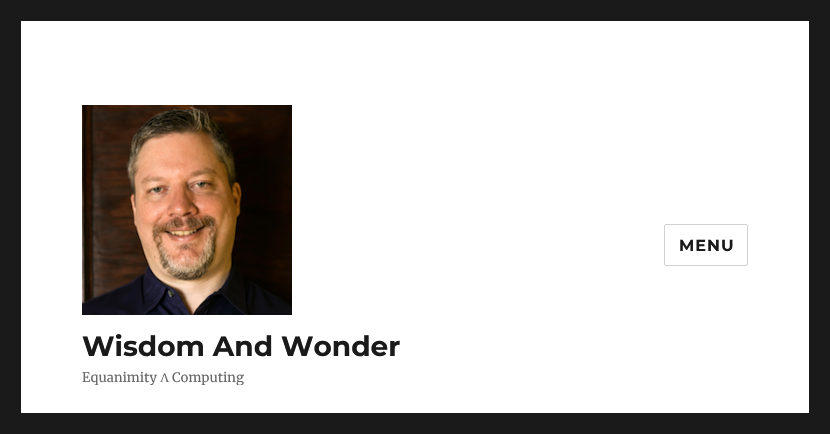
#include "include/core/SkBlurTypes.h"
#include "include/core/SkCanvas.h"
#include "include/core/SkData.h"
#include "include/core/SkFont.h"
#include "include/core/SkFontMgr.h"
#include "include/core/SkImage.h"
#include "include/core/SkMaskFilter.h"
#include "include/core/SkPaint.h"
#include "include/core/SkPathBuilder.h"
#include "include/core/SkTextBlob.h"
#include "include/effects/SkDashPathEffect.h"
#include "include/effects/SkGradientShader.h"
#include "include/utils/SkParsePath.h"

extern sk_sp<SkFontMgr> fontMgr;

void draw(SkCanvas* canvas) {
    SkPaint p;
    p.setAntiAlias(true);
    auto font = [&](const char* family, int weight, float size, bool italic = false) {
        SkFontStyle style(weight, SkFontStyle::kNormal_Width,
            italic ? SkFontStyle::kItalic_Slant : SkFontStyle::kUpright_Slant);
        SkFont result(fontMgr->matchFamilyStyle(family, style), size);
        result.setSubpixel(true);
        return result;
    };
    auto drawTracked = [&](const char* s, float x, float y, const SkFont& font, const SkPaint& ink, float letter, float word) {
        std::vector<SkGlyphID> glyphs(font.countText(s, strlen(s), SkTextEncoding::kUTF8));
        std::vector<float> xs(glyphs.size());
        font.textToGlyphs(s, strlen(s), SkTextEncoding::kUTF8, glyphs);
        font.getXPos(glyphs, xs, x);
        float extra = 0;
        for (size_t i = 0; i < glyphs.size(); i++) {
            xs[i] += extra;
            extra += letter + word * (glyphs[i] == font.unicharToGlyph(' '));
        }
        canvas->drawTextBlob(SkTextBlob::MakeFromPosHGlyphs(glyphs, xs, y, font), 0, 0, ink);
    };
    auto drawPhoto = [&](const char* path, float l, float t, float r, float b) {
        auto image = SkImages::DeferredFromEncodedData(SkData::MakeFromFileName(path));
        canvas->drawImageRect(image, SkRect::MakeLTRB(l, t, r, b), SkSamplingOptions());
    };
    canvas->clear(0xFF1A1A1A);
    p.setColor(0xFFFFFFFF);
    canvas->drawRect(SkRect::MakeLTRB(21, 21, 809, 413), p);
    p.setStyle(SkPaint::kStroke_Style);
    p.setStrokeWidth(1);
    p.setColor(0xFFD1D1D1);
    canvas->drawRoundRect(SkRect::MakeLTRB(664.5f, 224.5f, 747.5f, 265.5f), 1.5f, 1.5f, p);
    auto font1 = font("Montserrat", 100, 16);
    p.setStyle(SkPaint::kFill_Style);
    p.setColor(0xFF1A1A1A);
    drawTracked("MENU", 679, 251, font1, p, 1, 0);
    drawPhoto("media/1.png", 82, 105, 292, 315);
    auto font2 = font("Montserrat", 100, 28);
    canvas->drawString("Wisdom And Wonder", 82, 356, font2, p);
    canvas->save();
    canvas->clipRect(SkRect::MakeLTRB(82, 105, 400, 385));
    auto font3 = font("Merriweather", 400, 13);
    p.setColor(0xFF686868);
    canvas->drawString("Equanimity", 82, 382, font3, p);
    canvas->restore();
    auto font4 = font("Liberation Serif", 400, 13);
    canvas->drawString("Λ", 160, 382, font4, p);
    canvas->save();
    canvas->clipRect(SkRect::MakeLTRB(82, 105, 400, 385));
    canvas->drawString("Computing", 172, 382, font3, p);
    canvas->restore();
}
